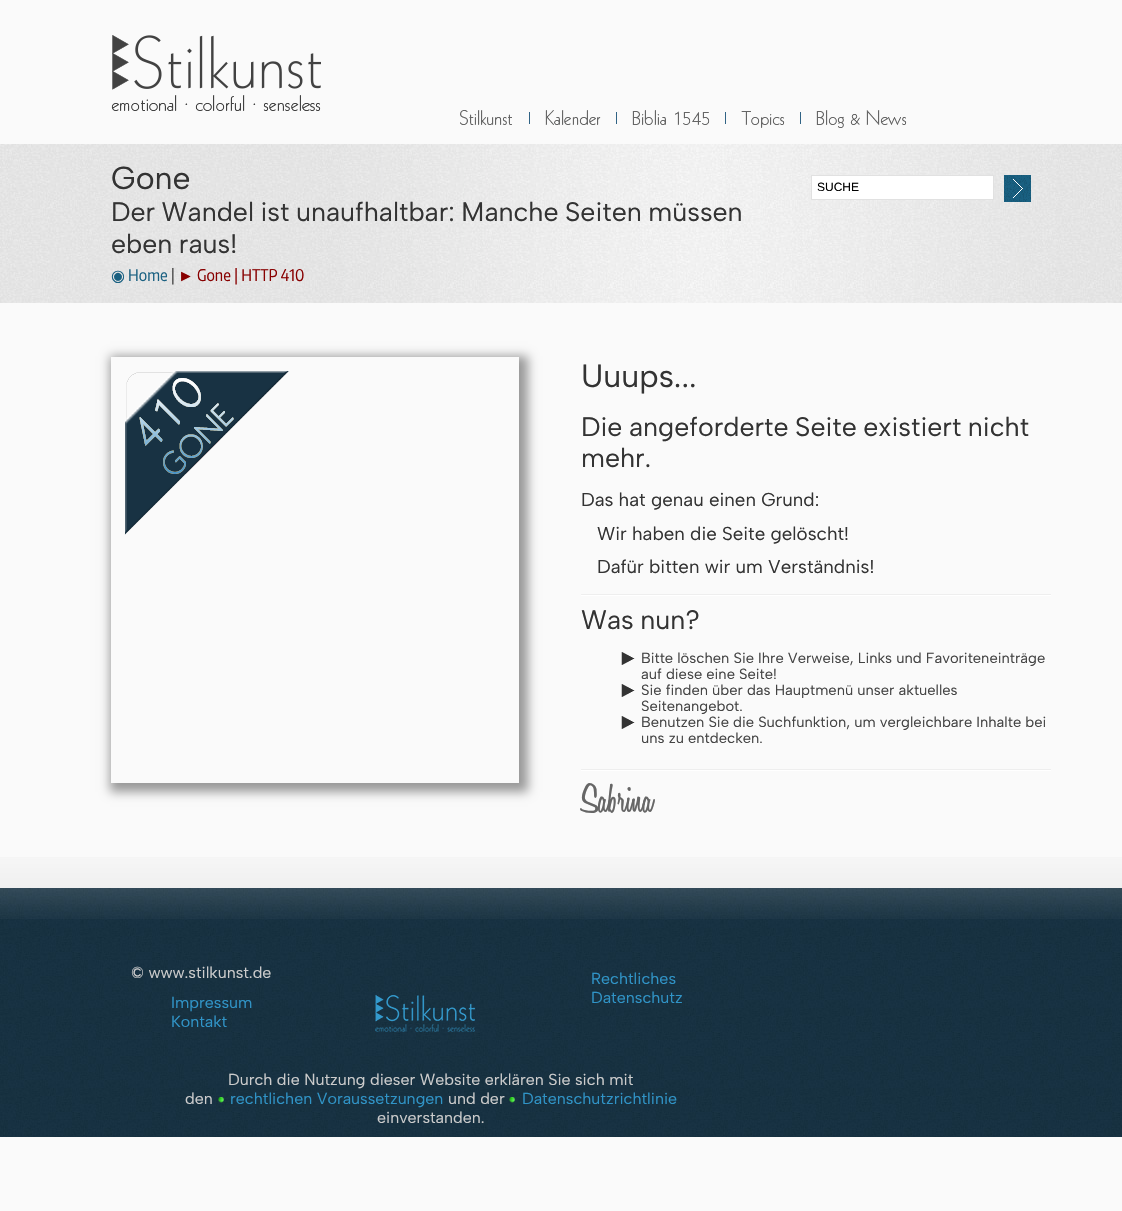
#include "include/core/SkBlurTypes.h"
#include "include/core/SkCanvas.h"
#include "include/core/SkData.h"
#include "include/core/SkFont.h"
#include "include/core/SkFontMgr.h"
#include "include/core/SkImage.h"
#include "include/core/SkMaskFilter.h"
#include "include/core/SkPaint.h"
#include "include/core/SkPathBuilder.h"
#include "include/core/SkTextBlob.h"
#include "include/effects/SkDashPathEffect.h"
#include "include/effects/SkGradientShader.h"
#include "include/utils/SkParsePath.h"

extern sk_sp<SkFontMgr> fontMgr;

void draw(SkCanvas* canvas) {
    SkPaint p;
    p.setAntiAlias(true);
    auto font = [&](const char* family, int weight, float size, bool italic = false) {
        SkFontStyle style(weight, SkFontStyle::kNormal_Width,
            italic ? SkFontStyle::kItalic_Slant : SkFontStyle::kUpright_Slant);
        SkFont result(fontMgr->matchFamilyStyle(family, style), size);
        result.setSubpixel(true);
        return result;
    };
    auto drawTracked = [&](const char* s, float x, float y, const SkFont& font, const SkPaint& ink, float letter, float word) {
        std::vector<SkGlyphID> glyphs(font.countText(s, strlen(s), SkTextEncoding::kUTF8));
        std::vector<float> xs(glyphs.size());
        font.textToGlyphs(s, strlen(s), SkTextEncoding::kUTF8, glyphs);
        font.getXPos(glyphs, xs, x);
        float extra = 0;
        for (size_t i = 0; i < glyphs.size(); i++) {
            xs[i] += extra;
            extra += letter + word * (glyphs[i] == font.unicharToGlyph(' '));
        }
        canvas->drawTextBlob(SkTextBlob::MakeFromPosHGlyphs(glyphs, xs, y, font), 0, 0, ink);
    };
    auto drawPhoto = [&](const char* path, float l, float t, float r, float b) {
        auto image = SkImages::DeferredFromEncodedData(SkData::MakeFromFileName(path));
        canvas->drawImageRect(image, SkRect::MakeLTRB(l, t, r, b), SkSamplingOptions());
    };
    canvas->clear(0xFFFAFAFA);
    drawPhoto("media/1.png", 111, 35, 321, 111);
    drawPhoto("media/2.png", 460, 110, 512, 125);
    p.setColor(0xFF306385);
    canvas->drawRect(SkRect::MakeLTRB(529, 112, 530, 124), p);
    drawPhoto("media/3.png", 545, 110, 601, 125);
    canvas->drawRect(SkRect::MakeLTRB(616, 112, 617, 124), p);
    drawPhoto("media/4.png", 632, 110, 710, 125);
    canvas->drawRect(SkRect::MakeLTRB(725, 112, 726, 124), p);
    drawPhoto("media/5.png", 741, 111, 785, 128);
    canvas->drawRect(SkRect::MakeLTRB(800, 112, 801, 124), p);
    drawPhoto("media/6.png", 816, 110, 907, 128);
    drawPhoto("media/7.png", 0, 144, 1122, 303);
    drawPhoto("media/8.png", 0, 144, 1122, 303);
    auto font1 = font("Albert Sans", 400, 32);
    p.setColor(0xFF333333);
    canvas->drawString("Gone", 111, 189, font1, p);
    auto font2 = font("Albert Sans", 400, 26.7f);
    drawTracked("Der Wandel ist unaufhaltbar: Manche Seiten müssen", 111, 221, font2, p, 0, -1);
    drawTracked("eben raus!", 111, 253, font2, p, 0, -1);
    auto font3 = font("DejaVu Sans", 400, 16);
    p.setColor(0xFF196081);
    canvas->drawString("◉", 111, 281, font3, p);
    auto font4 = font("Encode Sans Condensed", 400, 16);
    canvas->drawString("Home", 128, 281, font4, p);
    p.setColor(0xFF444444);
    canvas->drawString("|", 171, 281, font4, p);
    auto font5 = font("Liberation Sans", 400, 16);
    p.setColor(0xFF880000);
    canvas->drawString("►", 178, 281, font5, p);
    canvas->drawString("Gone | HTTP 410", 197, 281, font4, p);
    p.setColor(0xFFFFFFFF);
    canvas->drawRect(SkRect::MakeLTRB(811.5f, 175.5f, 993.5f, 199.5f), p);
    p.setStyle(SkPaint::kStroke_Style);
    p.setStrokeWidth(1);
    p.setColor(0xFFE1E1E1);
    canvas->drawRect(SkRect::MakeLTRB(811.5f, 175.5f, 993.5f, 199.5f), p);
    auto font6 = font("Liberation Sans", 400, 12);
    p.setStyle(SkPaint::kFill_Style);
    p.setColor(0xFF000000);
    canvas->drawString("SUCHE", 817, 191, font6, p);
    drawPhoto("media/9.png", 1004, 175, 1031, 202);
    canvas->save();
    canvas->clipPath(SkPathBuilder(SkPathFillType::kEvenOdd).moveTo(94, 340).lineTo(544, 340).lineTo(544, 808).lineTo(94, 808).close().moveTo(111, 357).lineTo(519, 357).lineTo(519, 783).lineTo(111, 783).close().detach(), true);
    p.setColor(0xFF999999);
    p.setMaskFilter(SkMaskFilter::MakeBlur(kNormal_SkBlurStyle, 5));
    canvas->drawRect(SkRect::MakeLTRB(110, 356, 528, 792), p);
    p.setMaskFilter(nullptr);
    canvas->restore();
    drawPhoto("media/10.png", 124, 371, 289, 535);
    p.setColor(0xFF333333);
    canvas->drawString("Uuups...", 581, 387, font1, p);
    drawTracked("Die angeforderte Seite existiert nicht", 581, 436, font2, p, 0, -1);
    canvas->drawString("mehr.", 581, 467, font2, p);
    auto font7 = font("Albert Sans", 400, 18.7f);
    {
        const struct { const char* s; float x, y; } items[] = {
            {"Das hat genau einen Grund:", 581, 506},
            {"Wir haben die Seite gelöscht!", 597, 540},
            {"Dafür bitten wir um Verständnis!", 597, 573},
        };
        for (auto [s, x, y] : items) {
            canvas->drawString(s, x, y, font7, p);
        }
    }
    drawPhoto("media/11.png", 581, 594, 1051, 596);
    drawTracked("Was nun?", 581, 629, font2, p, 0, -1);
    drawPhoto("media/12.png", 621, 652, 635, 665);
    auto font8 = font("Albert Sans", 400, 14.7f);
    p.setColor(0xFF444444);
    canvas->drawString("Bitte löschen Sie Ihre Verweise, Links und Favoriteneinträge", 641, 663, font8, p);
    canvas->drawString("auf diese eine Seite!", 641, 679, font8, p);
    drawPhoto("media/12.png", 621, 684, 635, 697);
    canvas->drawString("Sie finden über das Hauptmenü unser aktuelles", 641, 695, font8, p);
    canvas->drawString("Seitenangebot.", 641, 711, font8, p);
    drawPhoto("media/12.png", 621, 716, 635, 729);
    canvas->drawString("Benutzen Sie die Suchfunktion, um vergleichbare Inhalte bei", 641, 727, font8, p);
    canvas->drawString("uns zu entdecken.", 641, 743, font8, p);
    drawPhoto("media/11.png", 581, 769, 1051, 771);
    auto font9 = font("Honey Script", 600, 43);
    p.setColor(0xFF666666);
    canvas->drawString("Sabrina", 581, 812, font9, p);
    drawPhoto("media/13.png", 0, 857, 1122, 888);
    drawPhoto("media/14.png", 0, 888, 1122, 1137);
    drawPhoto("media/15.png", 0, 888, 1122, 919);
    auto font10 = font("Albert Sans", 400, 16);
    p.setColor(0xFFCCCCCC);
    canvas->drawString("© www.stilkunst.de", 131, 978, font10, p);
    p.setColor(0xFF3094C7);
    {
        const struct { const char* s; float x, y; } items[] = {
            {"Impressum", 171, 1008},
            {"Kontakt", 171, 1027},
            {"Rechtliches", 591, 984},
            {"Datenschutz", 591, 1003},
        };
        for (auto [s, x, y] : items) {
            canvas->drawString(s, x, y, font10, p);
        }
    }
    drawPhoto("media/16.png", 375, 995, 475, 1032);
    p.setColor(0xFFCCCCCC);
    canvas->drawString("Durch die Nutzung dieser Website erklären Sie sich mit", 228, 1085, font10, p);
    canvas->drawString("den", 185, 1104, font10, p);
    drawPhoto("media/17.png", 218, 1097, 224, 1103);
    p.setColor(0xFF3094C7);
    canvas->drawString("rechtlichen Voraussetzungen", 230, 1104, font10, p);
    p.setColor(0xFFCCCCCC);
    canvas->drawString("und der", 448, 1104, font10, p);
    drawPhoto("media/18.png", 509, 1097, 515, 1103);
    p.setColor(0xFF3094C7);
    canvas->drawString("Datenschutzrichtlinie", 522, 1104, font10, p);
    p.setColor(0xFFCCCCCC);
    canvas->drawString("einverstanden.", 377, 1123, font10, p);
}
